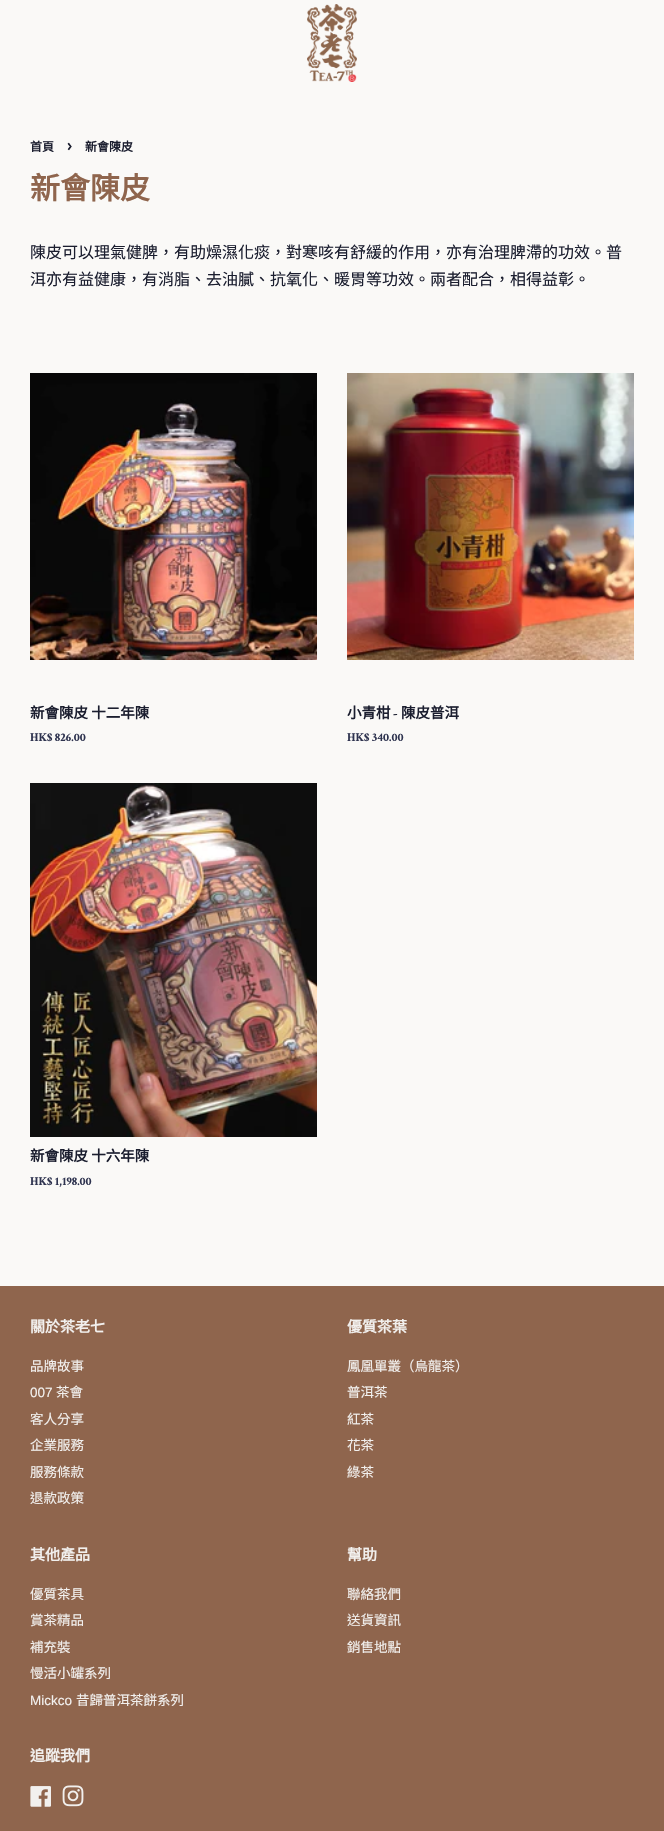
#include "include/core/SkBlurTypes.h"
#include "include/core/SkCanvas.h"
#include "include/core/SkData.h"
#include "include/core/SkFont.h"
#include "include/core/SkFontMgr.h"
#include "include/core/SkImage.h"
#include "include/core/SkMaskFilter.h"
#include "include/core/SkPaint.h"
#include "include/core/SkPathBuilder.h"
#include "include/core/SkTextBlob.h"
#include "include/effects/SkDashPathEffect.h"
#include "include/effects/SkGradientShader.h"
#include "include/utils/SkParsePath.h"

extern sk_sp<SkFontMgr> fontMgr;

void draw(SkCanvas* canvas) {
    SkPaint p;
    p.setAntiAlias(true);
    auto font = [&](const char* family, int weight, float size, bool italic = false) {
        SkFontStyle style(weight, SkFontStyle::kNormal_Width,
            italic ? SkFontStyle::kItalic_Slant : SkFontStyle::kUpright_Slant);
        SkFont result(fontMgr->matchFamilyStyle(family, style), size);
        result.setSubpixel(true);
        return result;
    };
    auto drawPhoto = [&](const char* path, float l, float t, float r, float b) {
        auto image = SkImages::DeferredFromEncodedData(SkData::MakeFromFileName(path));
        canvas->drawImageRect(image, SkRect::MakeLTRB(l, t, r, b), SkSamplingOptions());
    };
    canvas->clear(0xFFFAF9F7);
    drawPhoto("media/1.png", 307, 4, 357, 82);
    auto font1 = font("Noto Sans CJK TC", 700, 12);
    p.setColor(0xFF1B1E2F);
    canvas->drawString("首頁", 30, 151, font1, p);
    auto font2 = font("PT Sans", 700, 17);
    canvas->drawString("›", 67, 151, font2, p);
    canvas->drawString("新會陳皮", 85, 151, font1, p);
    auto font3 = font("Noto Sans CJK TC", 700, 30);
    p.setColor(0xFF8F654D);
    canvas->drawString("新會陳皮", 30, 199, font3, p);
    auto font4 = font("Noto Sans CJK TC", 400, 16);
    p.setColor(0xFF1B1E2F);
    canvas->drawString("陳皮可以理氣健脾，有助燥濕化痰，對寒咳有舒緩的作用，亦有治理脾滯的功效。普", 30, 258, font4, p);
    canvas->drawString("洱亦有益健康，有消脂、去油膩、抗氧化、暖胃等功效。兩者配合，相得益彰。", 30, 285, font4, p);
    drawPhoto("media/2.png", 30, 373, 317, 660);
    auto font5 = font("Noto Sans CJK TC", 700, 14.5f);
    canvas->drawString("新會陳皮 十二年陳", 30, 718, font5, p);
    auto font6 = font("Crimson Text", 700, 12);
    p.setColor(0xFF2E334F);
    canvas->drawString("HK$ 826.00", 30, 741, font6, p);
    drawPhoto("media/3.png", 347, 373, 634, 660);
    p.setColor(0xFF1B1E2F);
    canvas->drawString("小青柑", 347, 718, font5, p);
    auto font7 = font("Crimson Text", 700, 14.5f);
    canvas->drawString("-", 393, 718, font7, p);
    canvas->drawString("陳皮普洱", 401, 718, font5, p);
    p.setColor(0xFF2E334F);
    canvas->drawString("HK$ 340.00", 347, 741, font6, p);
    drawPhoto("media/4.png", 30, 783, 317, 1137);
    p.setColor(0xFF1B1E2F);
    canvas->drawString("新會陳皮 十六年陳", 30, 1161, font5, p);
    p.setColor(0xFF2E334F);
    canvas->drawString("HK$ 1,198.00", 30, 1185, font6, p);
    p.setColor(0xFF8F654D);
    canvas->drawRect(SkRect::MakeLTRB(0, 1286, 664, 1831), p);
    auto font8 = font("Noto Sans CJK TC", 700, 15);
    p.setColor(0xFFF2F0EE);
    canvas->drawString("關於茶老七", 30, 1332, font8, p);
    auto font9 = font("Noto Sans CJK TC", 400, 13.5f);
    canvas->drawString("品牌故事", 30, 1371, font9, p);
    auto font10 = font("Liberation Sans", 400, 13.5f);
    canvas->drawString("007", 30, 1397, font10, p);
    {
        const struct { const char* s; float x, y; } items[] = {
            {"茶會", 56, 1397},
            {"客人分享", 30, 1424},
            {"企業服務", 30, 1450},
            {"服務條款", 30, 1477},
            {"退款政策", 30, 1503},
        };
        for (auto [s, x, y] : items) {
            canvas->drawString(s, x, y, font9, p);
        }
    }
    canvas->drawString("優質茶葉", 347, 1332, font8, p);
    {
        const struct { const char* s; float x, y; } items[] = {
            {"鳳凰單叢（烏龍茶）", 347, 1371},
            {"普洱茶", 347, 1397},
            {"紅茶", 347, 1424},
            {"花茶", 347, 1450},
            {"綠茶", 347, 1477},
        };
        for (auto [s, x, y] : items) {
            canvas->drawString(s, x, y, font9, p);
        }
    }
    canvas->drawString("其他產品", 30, 1560, font8, p);
    {
        const struct { const char* s; float x, y; } items[] = {
            {"優質茶具", 30, 1599},
            {"賞茶精品", 30, 1625},
            {"補充裝", 30, 1652},
            {"慢活小罐系列", 30, 1678},
        };
        for (auto [s, x, y] : items) {
            canvas->drawString(s, x, y, font9, p);
        }
    }
    canvas->drawString("Mickco", 30, 1705, font10, p);
    canvas->drawString("昔歸普洱茶餅系列", 76, 1705, font9, p);
    canvas->drawString("幫助", 347, 1560, font8, p);
    {
        const struct { const char* s; float x, y; } items[] = {
            {"聯絡我們", 347, 1599},
            {"送貨資訊", 347, 1625},
            {"銷售地點", 347, 1652},
        };
        for (auto [s, x, y] : items) {
            canvas->drawString(s, x, y, font9, p);
        }
    }
    canvas->drawString("追蹤我們", 30, 1761, font8, p);
    drawPhoto("media/5.png", 30, 1786, 51, 1807);
    drawPhoto("media/6.png", 62, 1785, 84, 1807);
}
